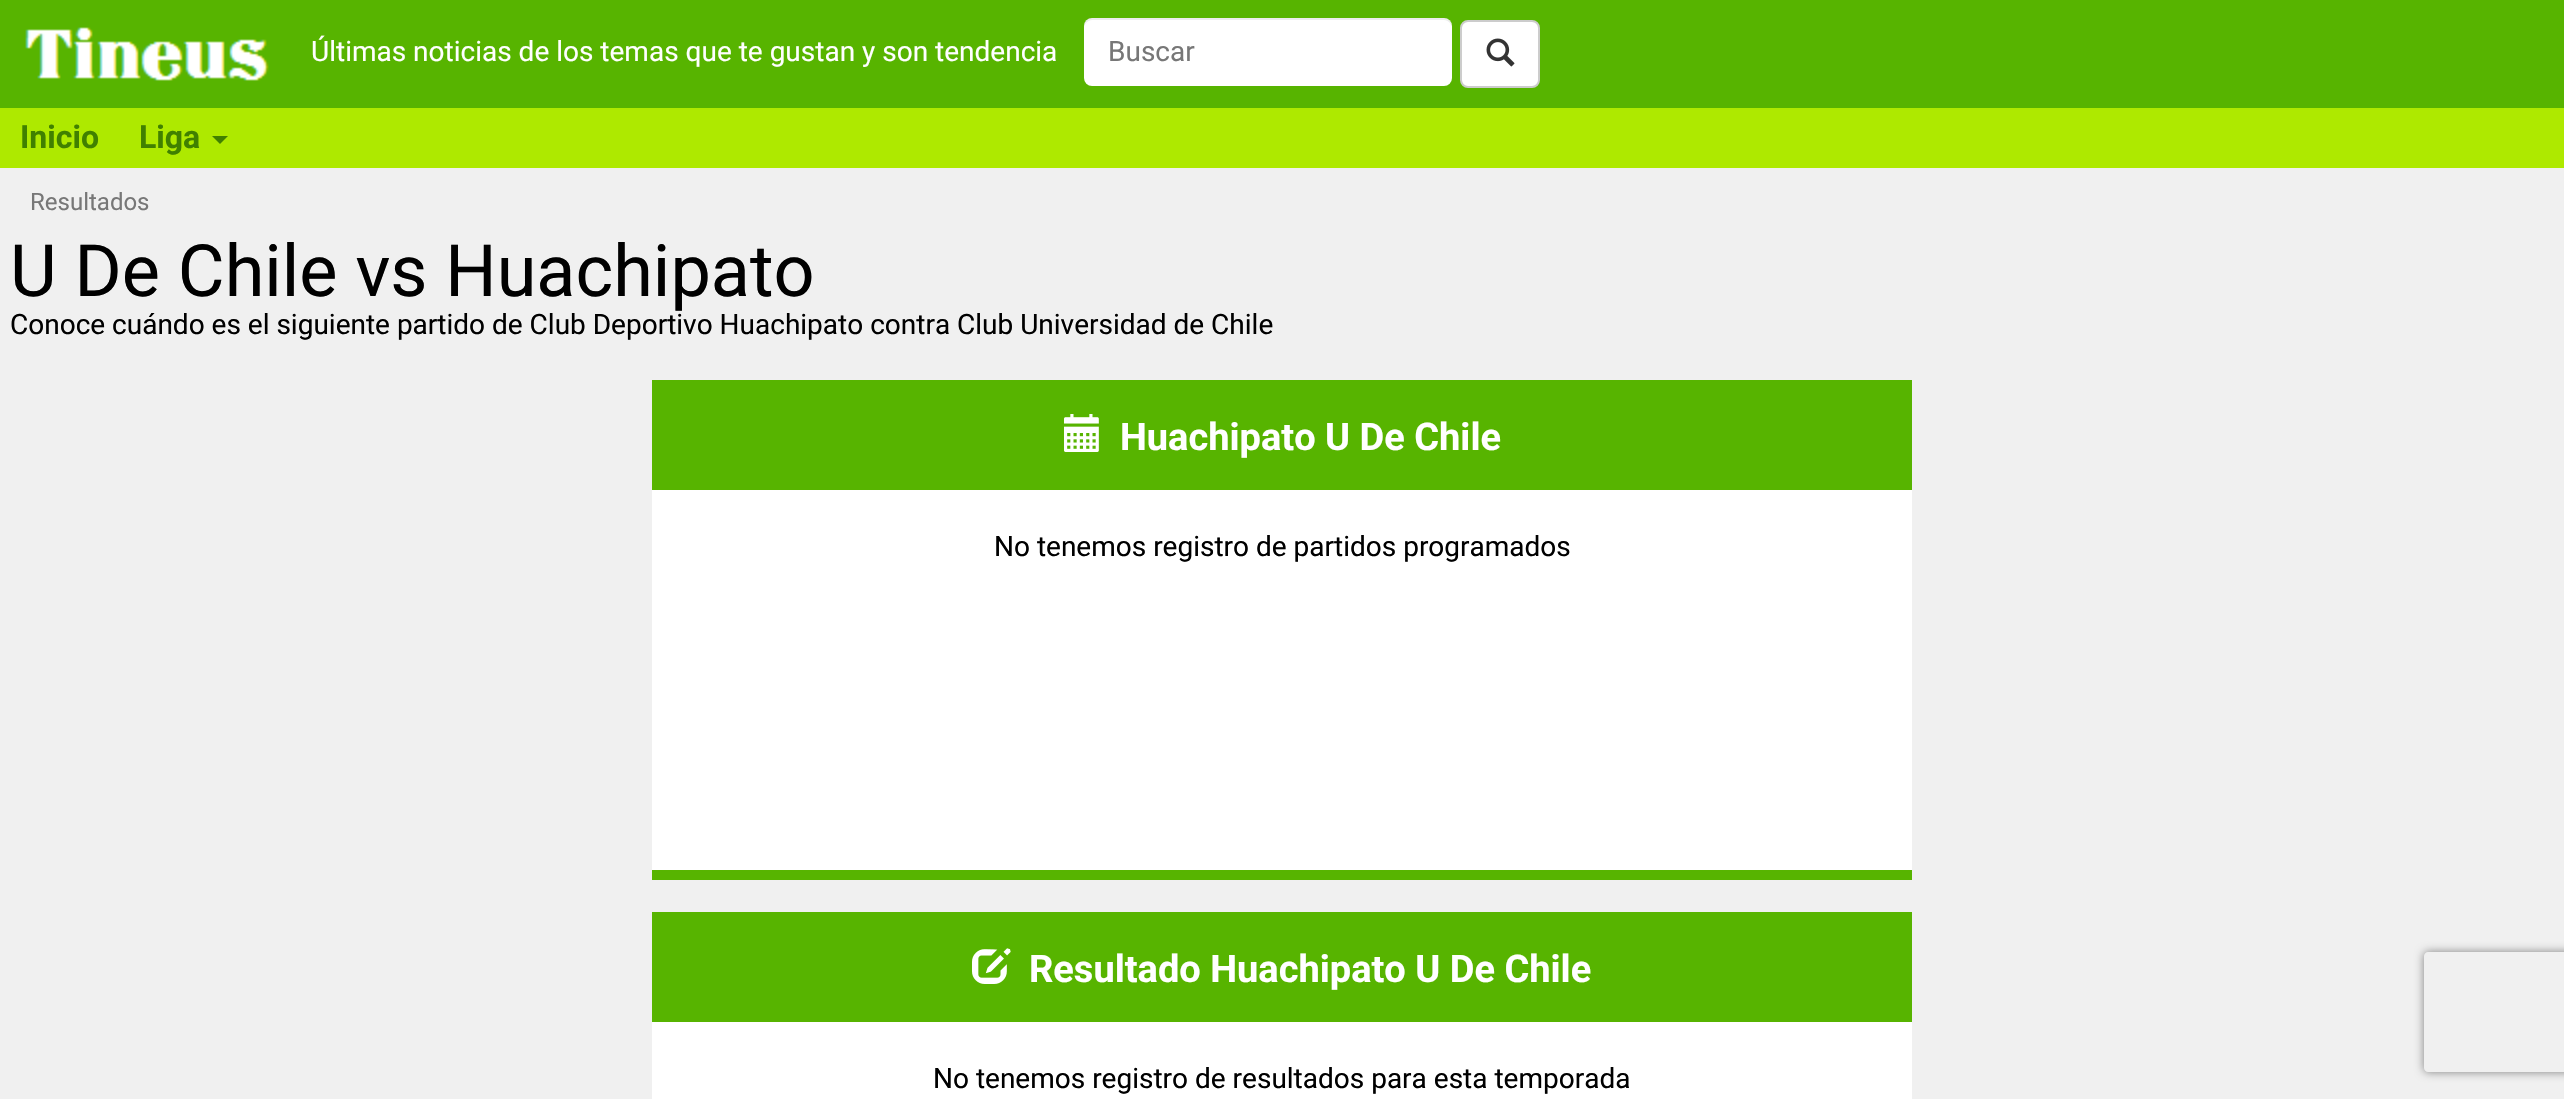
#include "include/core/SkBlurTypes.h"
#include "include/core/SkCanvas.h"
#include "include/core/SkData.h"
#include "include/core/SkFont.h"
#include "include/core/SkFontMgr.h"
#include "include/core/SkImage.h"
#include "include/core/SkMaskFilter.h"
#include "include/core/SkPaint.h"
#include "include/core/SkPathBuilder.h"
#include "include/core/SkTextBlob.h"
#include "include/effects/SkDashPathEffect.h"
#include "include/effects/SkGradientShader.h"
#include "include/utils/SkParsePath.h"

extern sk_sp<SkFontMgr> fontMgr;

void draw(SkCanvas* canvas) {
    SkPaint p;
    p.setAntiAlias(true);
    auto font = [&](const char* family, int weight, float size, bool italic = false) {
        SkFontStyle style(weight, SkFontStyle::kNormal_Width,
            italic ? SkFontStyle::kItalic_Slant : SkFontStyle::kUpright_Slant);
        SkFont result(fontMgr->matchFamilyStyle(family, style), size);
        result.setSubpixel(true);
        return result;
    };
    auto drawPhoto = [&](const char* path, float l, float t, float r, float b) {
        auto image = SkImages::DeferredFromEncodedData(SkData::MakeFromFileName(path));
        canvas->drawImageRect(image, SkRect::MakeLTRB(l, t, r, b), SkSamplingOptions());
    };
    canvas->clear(0xFFF0F0F0);
    p.setColor(0xFF57B400);
    canvas->drawRect(SkRect::MakeLTRB(0, 0, 2564, 108), p);
    drawPhoto("media/1.png", 25, 27, 269, 81);
    auto font1 = font("Roboto", 400, 28);
    p.setColor(0xFFFFFFFF);
    canvas->drawString("Últimas noticias de los temas que te gustan y son tendencia", 311, 61, font1, p);
    canvas->drawRoundRect(SkRect::MakeLTRB(1084, 18, 1452, 86), 8, 8, p);
    p.setColor(0x12000000);
    canvas->drawPath(SkPathBuilder().moveTo(1092, 20).lineTo(1444, 20).cubicTo(1448, 20, 1452, 24, 1452, 28).cubicTo(1452, 23, 1450, 18, 1444, 18).lineTo(1090, 18).cubicTo(1085, 19, 1084, 24, 1084, 28).cubicTo(1084, 24, 1088, 20, 1092, 20).close().detach(), p);
    p.setColor(0xFF777777);
    canvas->drawString("Buscar", 1108, 61, font1, p);
    p.setColor(0xFFFFFFFF);
    canvas->drawRoundRect(SkRect::MakeLTRB(1461, 21, 1539, 87), 7, 7, p);
    p.setStyle(SkPaint::kStroke_Style);
    p.setStrokeWidth(2);
    p.setColor(0xFFCCCCCC);
    canvas->drawRoundRect(SkRect::MakeLTRB(1461, 21, 1539, 87), 7, 7, p);
    drawPhoto("media/2.png", 1486, 38, 1515, 67);
    p.setStyle(SkPaint::kFill_Style);
    p.setColor(0xFFAEE900);
    canvas->drawRect(SkRect::MakeLTRB(0, 108, 2564, 168), p);
    auto font2 = font("Roboto", 700, 32);
    p.setColor(0xFF408000);
    canvas->drawString("Inicio", 20, 148, font2, p);
    canvas->drawString("Liga", 139, 148, font2, p);
    canvas->drawPath(SkPathBuilder().moveTo(212, 136).lineTo(228, 136).lineTo(220, 144).close().detach(), p);
    auto font3 = font("Roboto", 400, 24);
    p.setColor(0xFF777777);
    canvas->drawString("Resultados", 30, 210, font3, p);
    auto font4 = font("Roboto", 400, 72);
    p.setColor(0xFF000000);
    canvas->drawString("U De Chile vs Huachipato", 10, 296, font4, p);
    canvas->drawString("Conoce cuándo es el siguiente partido de Club Deportivo Huachipato contra Club Universidad de Chile", 10, 334, font1, p);
    {
        const struct { float l, t, r, b; SkColor color; } items[] = {
            {652, 490, 1912, 870, 0xFFFFFFFF},
            {652, 870, 1912, 880, 0xFF57B400},
            {652, 380, 1912, 490, 0xFF57B400},
        };
        for (auto [l, t, r, b, color] : items) {
            p.setColor(color);
            canvas->drawRect(SkRect::MakeLTRB(l, t, r, b), p);
        }
    }
    drawPhoto("media/3.png", 1064, 414, 1099, 452);
    auto font5 = font("Roboto", 700, 38);
    p.setColor(0xFFFFFFFF);
    canvas->drawString("Huachipato U De Chile", 1120, 450, font5, p);
    p.setColor(0xFF000000);
    canvas->drawString("No tenemos registro de partidos programados", 994, 556, font1, p);
    p.setColor(0xFFFFFFFF);
    canvas->drawRect(SkRect::MakeLTRB(652, 1022, 1912, 1099), p);
    p.setColor(0xFF57B400);
    canvas->drawRect(SkRect::MakeLTRB(652, 912, 1912, 1022), p);
    drawPhoto("media/4.png", 972, 948, 1011, 984);
    p.setColor(0xFFFFFFFF);
    canvas->drawString("Resultado Huachipato U De Chile", 1029, 982, font5, p);
    p.setColor(0xFF000000);
    canvas->drawString("No tenemos registro de resultados para esta temporada", 933, 1088, font1, p);
    canvas->save();
    canvas->clipPath(SkPathBuilder(SkPathFillType::kEvenOdd).moveTo(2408, 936).lineTo(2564, 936).lineTo(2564, 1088).lineTo(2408, 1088).close().moveTo(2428, 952).lineTo(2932, 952).cubicTo(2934, 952, 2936, 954, 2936, 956).lineTo(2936, 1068).cubicTo(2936, 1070, 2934, 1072, 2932, 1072).lineTo(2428, 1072).cubicTo(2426, 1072, 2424, 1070, 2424, 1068).lineTo(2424, 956).cubicTo(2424, 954, 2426, 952, 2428, 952).close().detach(), true);
    p.setColor(0xFF808080);
    p.setMaskFilter(SkMaskFilter::MakeBlur(kNormal_SkBlurStyle, 5));
    canvas->drawRoundRect(SkRect::MakeLTRB(2424, 952, 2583, 1072), 4, 4, p);
    p.setMaskFilter(nullptr);
    canvas->restore();
}
